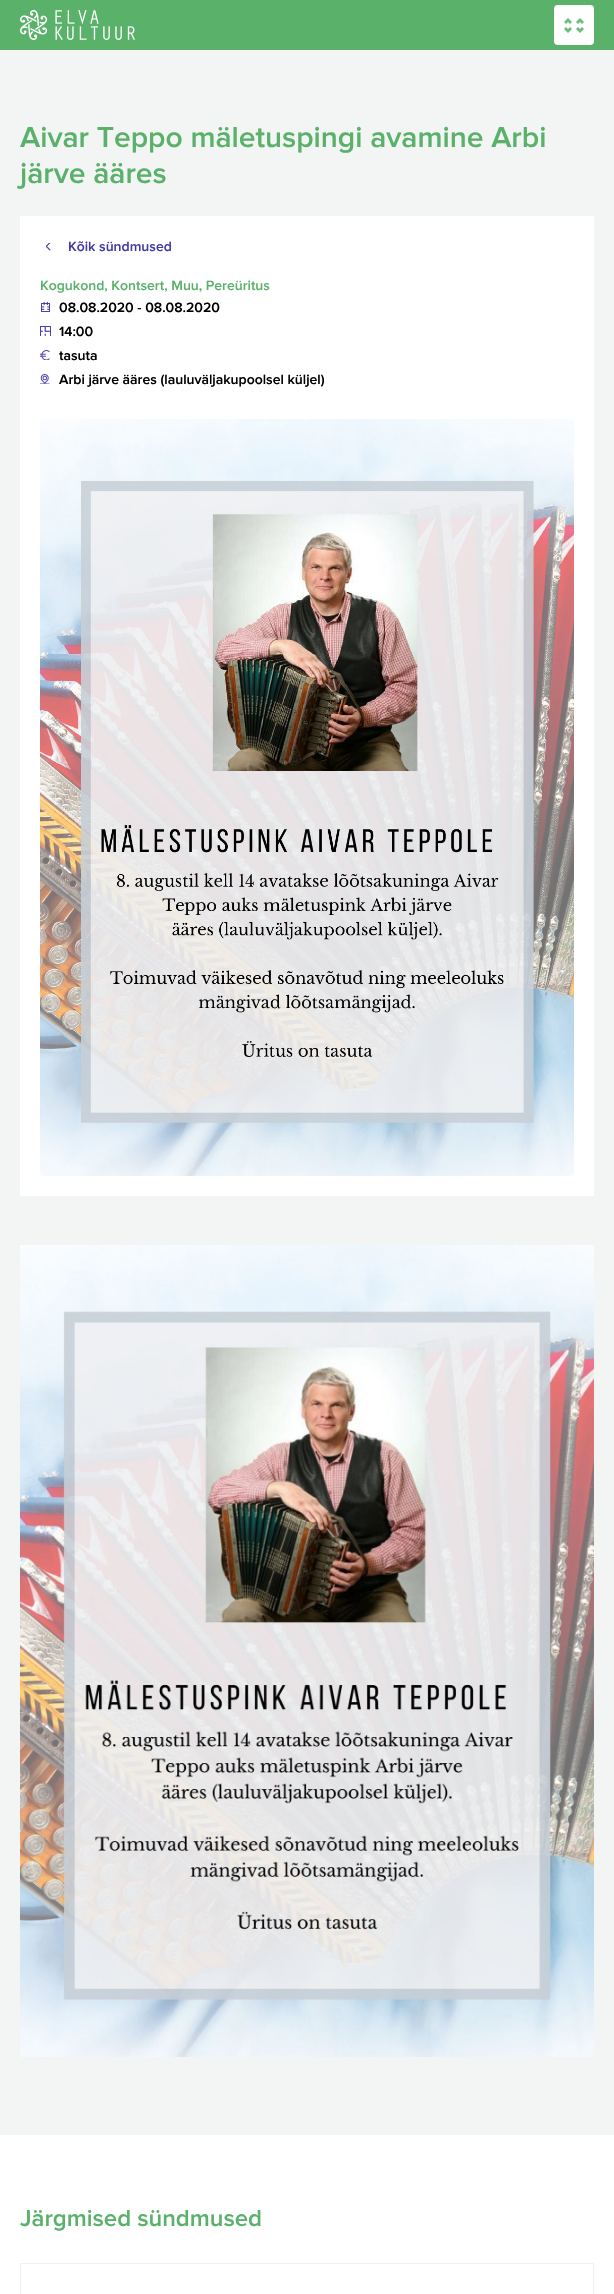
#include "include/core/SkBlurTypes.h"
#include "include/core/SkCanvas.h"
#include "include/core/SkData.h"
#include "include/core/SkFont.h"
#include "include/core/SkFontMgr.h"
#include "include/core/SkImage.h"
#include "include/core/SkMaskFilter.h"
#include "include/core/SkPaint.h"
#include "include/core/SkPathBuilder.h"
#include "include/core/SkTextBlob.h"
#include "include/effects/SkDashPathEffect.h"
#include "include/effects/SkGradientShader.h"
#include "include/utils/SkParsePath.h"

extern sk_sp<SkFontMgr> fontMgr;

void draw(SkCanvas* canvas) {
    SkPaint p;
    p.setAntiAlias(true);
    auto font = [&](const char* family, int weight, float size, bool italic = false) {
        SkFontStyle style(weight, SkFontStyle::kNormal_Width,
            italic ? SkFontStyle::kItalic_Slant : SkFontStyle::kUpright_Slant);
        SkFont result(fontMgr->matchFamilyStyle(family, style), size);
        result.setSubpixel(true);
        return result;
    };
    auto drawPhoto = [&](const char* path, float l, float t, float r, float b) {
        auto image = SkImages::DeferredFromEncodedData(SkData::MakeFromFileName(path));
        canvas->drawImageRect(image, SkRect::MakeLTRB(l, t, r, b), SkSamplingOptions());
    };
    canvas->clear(0xFFF3F4F4);
    p.setColor(0xFF59B16A);
    canvas->drawRect(SkRect::MakeLTRB(0, 0, 614, 50), p);
    drawPhoto("media/1.png", 20, 10, 135, 40);
    p.setColor(0xFFFFFFFF);
    canvas->drawRoundRect(SkRect::MakeLTRB(554, 5, 594, 45), 4, 4, p);
    drawPhoto("media/2.png", 564, 18, 584, 33);
    auto font1 = font("Proxima Nova", 600, 30);
    p.setColor(0xFF59B16A);
    canvas->drawString("Aivar Teppo mäletuspingi avamine Arbi", 20, 147, font1, p);
    canvas->drawString("järve ääres", 20, 183, font1, p);
    p.setColor(0xFFFFFFFF);
    canvas->drawRect(SkRect::MakeLTRB(20, 216, 594, 1196), p);
    drawPhoto("media/3.png", 46, 243, 51, 251);
    auto font2 = font("Proxima Nova", 600, 14);
    p.setColor(0xFF423AA7);
    canvas->drawString("Kõik sündmused", 68, 251, font2, p);
    p.setColor(0xFF59B16A);
    canvas->drawString("Kogukond, Kontsert, Muu, Pereüritus", 40, 290, font2, p);
    drawPhoto("media/4.png", 41, 302, 50, 312);
    p.setColor(0xFF000000);
    canvas->drawString("08.08.2020 - 08.08.2020", 59, 312, font2, p);
    drawPhoto("media/5.png", 40, 326, 51, 336);
    canvas->drawString("14:00", 59, 336, font2, p);
    drawPhoto("media/6.png", 40, 350, 50, 360);
    canvas->drawString("tasuta", 59, 360, font2, p);
    drawPhoto("media/7.png", 40, 374, 50, 384);
    canvas->drawString("Arbi järve ääres (lauluväljakupoolsel küljel)", 59, 384, font2, p);
    drawPhoto("media/8.png", 40, 419, 574, 1176);
    drawPhoto("media/9.png", 20, 1245, 594, 2057);
    p.setColor(0xFFFFFFFF);
    canvas->drawRect(SkRect::MakeLTRB(0, 2135, 614, 2294), p);
    auto font3 = font("Proxima Nova", 600, 24);
    p.setColor(0xFF59B16A);
    canvas->drawString("Järgmised sündmused", 20, 2226, font3, p);
    p.setStyle(SkPaint::kStroke_Style);
    p.setStrokeWidth(1);
    p.setColor(0xFFEFF0F1);
    canvas->drawRect(SkRect::MakeLTRB(20.5f, 2263.5f, 593.5f, 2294.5f), p);
}
